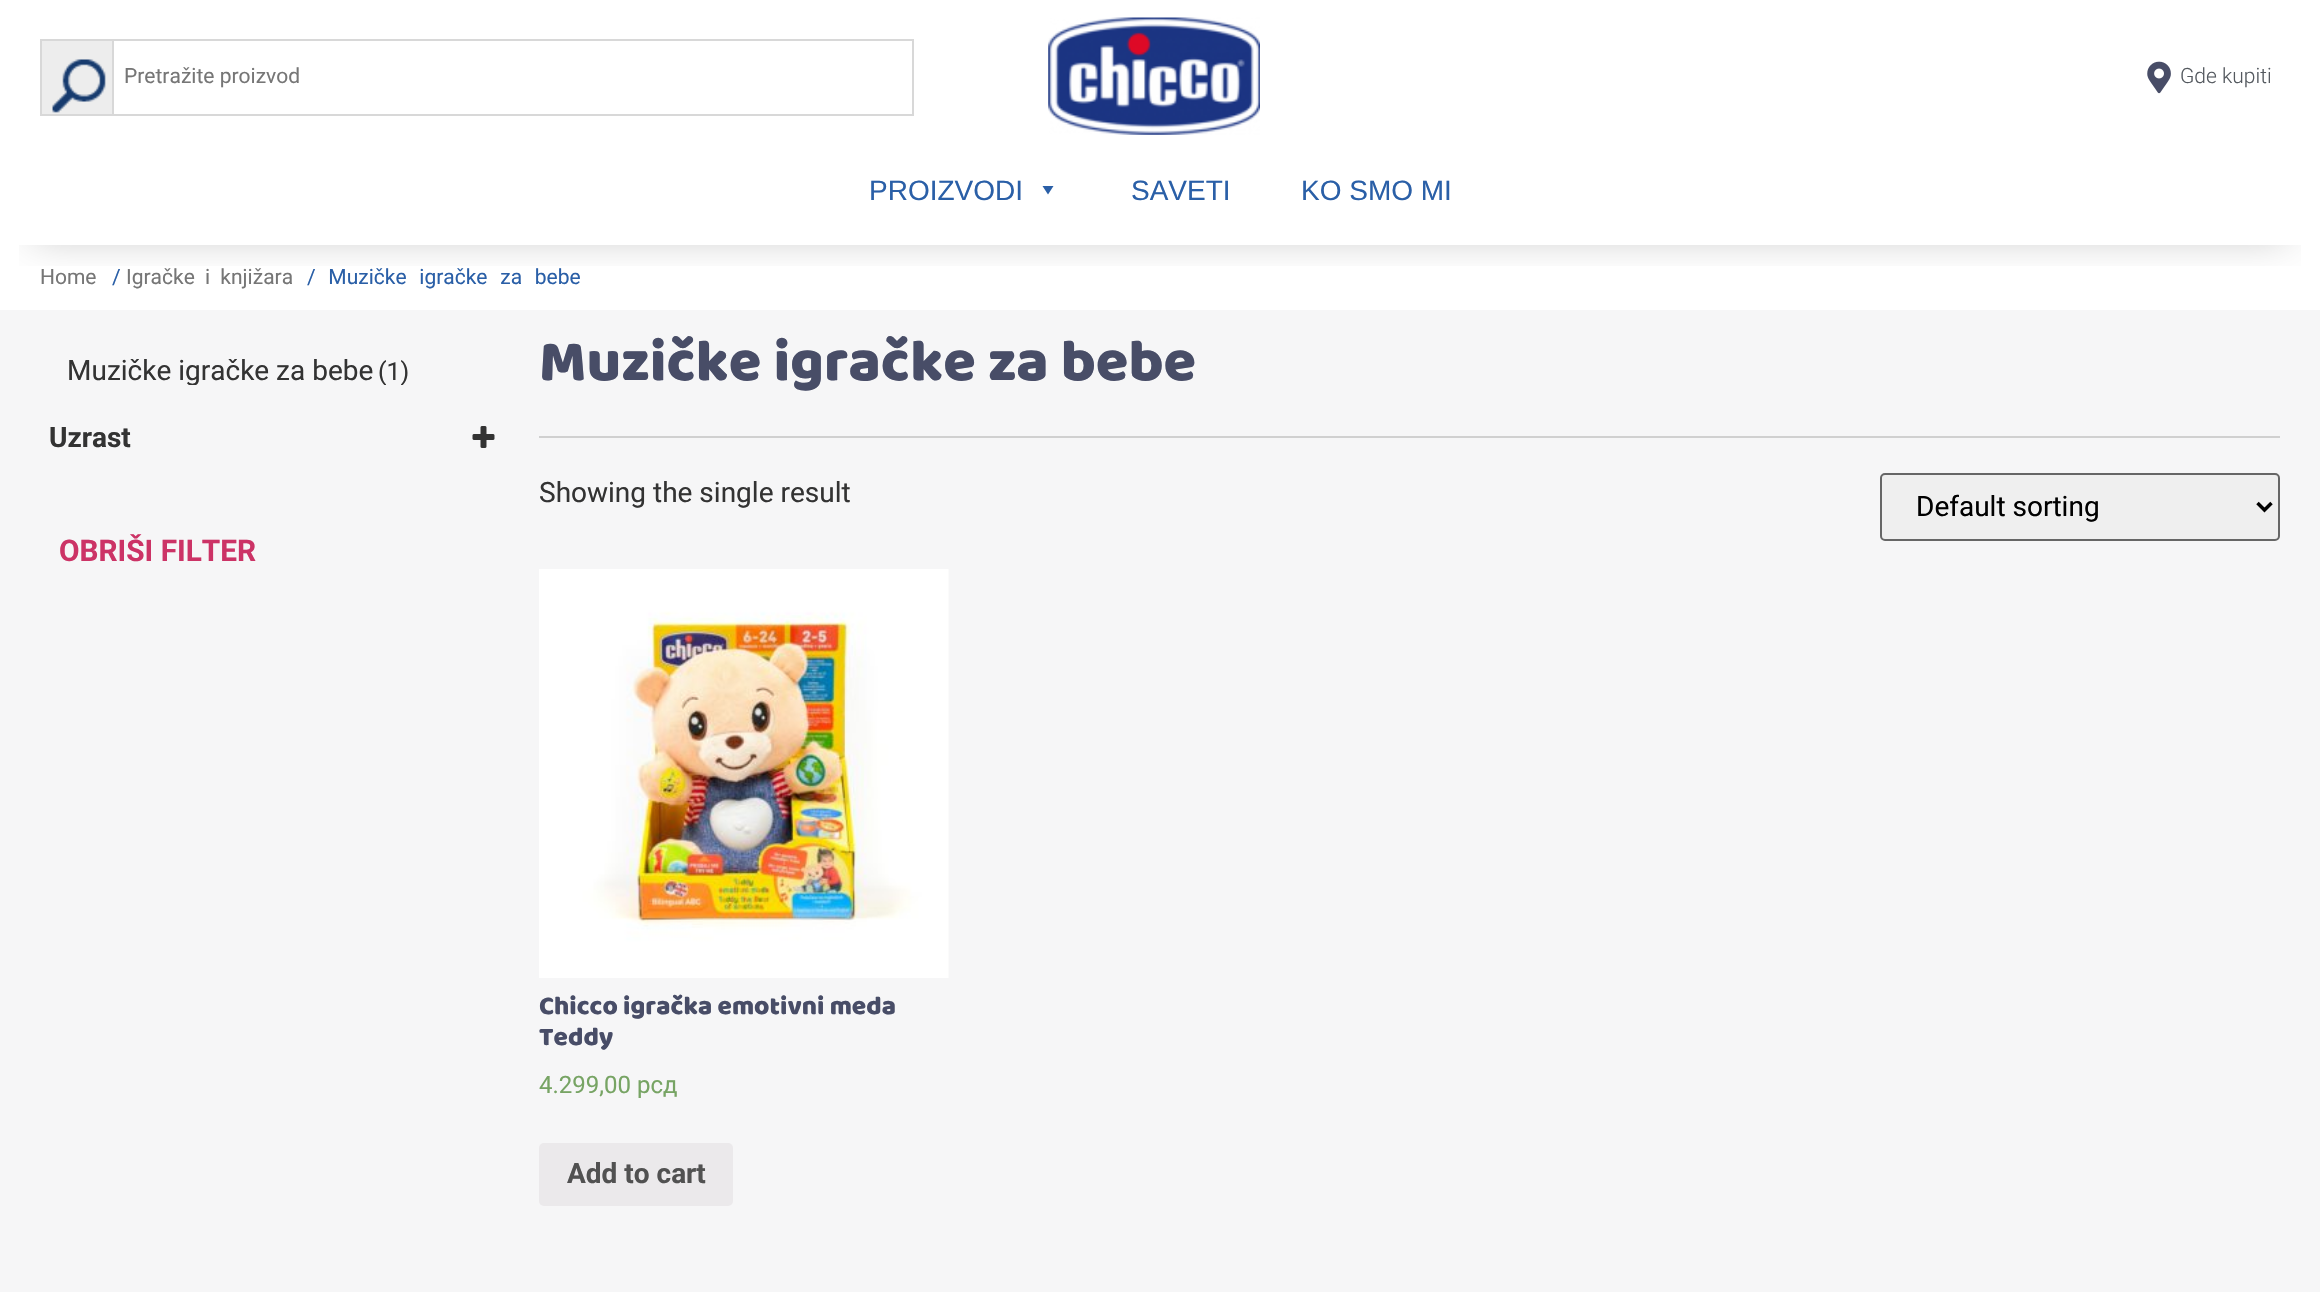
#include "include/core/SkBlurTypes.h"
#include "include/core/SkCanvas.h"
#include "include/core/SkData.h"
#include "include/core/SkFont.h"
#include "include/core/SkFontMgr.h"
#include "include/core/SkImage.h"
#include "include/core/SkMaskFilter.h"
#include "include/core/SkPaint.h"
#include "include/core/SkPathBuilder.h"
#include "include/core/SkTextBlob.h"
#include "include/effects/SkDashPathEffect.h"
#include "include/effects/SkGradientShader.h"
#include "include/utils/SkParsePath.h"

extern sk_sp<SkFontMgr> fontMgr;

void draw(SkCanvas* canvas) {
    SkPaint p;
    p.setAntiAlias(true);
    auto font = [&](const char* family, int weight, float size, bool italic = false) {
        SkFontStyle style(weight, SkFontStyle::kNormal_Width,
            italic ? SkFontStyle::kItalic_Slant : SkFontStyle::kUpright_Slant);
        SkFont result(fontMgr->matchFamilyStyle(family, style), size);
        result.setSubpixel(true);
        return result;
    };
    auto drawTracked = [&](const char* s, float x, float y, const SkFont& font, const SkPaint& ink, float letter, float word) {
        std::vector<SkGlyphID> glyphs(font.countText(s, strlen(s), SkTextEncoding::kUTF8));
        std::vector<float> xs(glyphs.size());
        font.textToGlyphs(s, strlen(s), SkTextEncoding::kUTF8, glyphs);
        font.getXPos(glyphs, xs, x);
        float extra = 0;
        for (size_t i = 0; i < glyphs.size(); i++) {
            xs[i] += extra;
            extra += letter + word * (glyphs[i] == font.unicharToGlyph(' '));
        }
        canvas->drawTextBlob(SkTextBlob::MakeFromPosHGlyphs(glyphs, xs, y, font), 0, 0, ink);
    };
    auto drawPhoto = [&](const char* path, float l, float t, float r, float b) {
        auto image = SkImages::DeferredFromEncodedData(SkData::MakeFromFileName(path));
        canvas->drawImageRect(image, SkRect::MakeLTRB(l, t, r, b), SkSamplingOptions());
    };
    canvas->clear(0xFFFFFFFF);
    p.setColor(0xFFEDEDED);
    canvas->drawRect(SkRect::MakeLTRB(41, 40, 113, 115), p);
    p.setStyle(SkPaint::kStroke_Style);
    p.setStrokeWidth(2);
    p.setColor(0xFFD8D8D8);
    canvas->drawRect(SkRect::MakeLTRB(41, 40, 113, 115), p);
    drawPhoto("media/1.png", 52, 59, 106, 113);
    canvas->drawRect(SkRect::MakeLTRB(113, 40, 913, 115), p);
    auto font1 = font("Roboto", 400, 21);
    p.setStyle(SkPaint::kFill_Style);
    p.setColor(0xFF767676);
    canvas->drawString("Pretražite proizvod", 124, 83, font1, p);
    drawPhoto("media/2.png", 1048, 17, 1260, 135);
    drawPhoto("media/3.png", 2147, 61, 2171, 94);
    auto font2 = font("Roboto", 300, 21);
    p.setColor(0xFF54595F);
    canvas->drawString("Gde kupiti", 2180, 83, font2, p);
    canvas->save();
    canvas->clipRect(SkRect::MakeLTRB(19, 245, 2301, 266));
    p.setColor(0x4A000000);
    p.setMaskFilter(SkMaskFilter::MakeBlur(kNormal_SkBlurStyle, 21));
    canvas->drawRect(SkRect::MakeLTRB(33, 208, 2287, 235), p);
    p.setMaskFilter(nullptr);
    canvas->restore();
    auto font3 = font("Liberation Sans", 400, 28);
    p.setColor(0xFF2A5FA7);
    canvas->drawString("PROIZVODI", 869, 200, font3, p);
    canvas->drawPath(SkPathBuilder().moveTo(1053.5f, 186).lineTo(1048, 194.5f).lineTo(1042.5f, 186).close().detach(), p);
    canvas->drawString("SAVETI", 1131, 200, font3, p);
    canvas->drawString("KO SMO MI", 1301, 200, font3, p);
    p.setColor(0xFF767676);
    canvas->drawString("Home", 40, 284, font1, p);
    p.setColor(0xFF2A5FA7);
    canvas->drawString("/", 112, 284, font1, p);
    p.setColor(0xFF767676);
    drawTracked("Igračke i knjižara", 126, 284, font1, p, 0, 5);
    p.setColor(0xFF2A5FA7);
    drawTracked("/ Muzičke igračke za bebe", 307, 284, font1, p, 0, 7.5f);
    p.setColor(0xFFF6F6F7);
    canvas->drawRect(SkRect::MakeLTRB(0, 310, 2320, 1292), p);
    canvas->save();
    canvas->clipRect(SkRect::MakeLTRB(49, 357, 495, 385));
    auto font4 = font("Roboto", 400, 28);
    p.setColor(0xFF333333);
    canvas->drawString("Muzičke igračke za bebe", 67, 380, font4, p);
    auto font5 = font("Roboto", 400, 25);
    canvas->drawString("(1)", 378, 380, font5, p);
    canvas->restore();
    auto font6 = font("Roboto", 700, 28);
    canvas->drawString("Uzrast", 49, 447, font6, p);
    drawPhoto("media/4.png", 472, 426, 495, 448);
    auto font7 = font("Roboto", 700, 29.75f);
    p.setColor(0xFFCC3366);
    canvas->drawString("OBRIŠI FILTER", 59, 561, font7, p);
    auto font8 = font("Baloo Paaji", 400, 59.5f);
    p.setColor(0xFF484D67);
    canvas->drawString("Muzičke igračke za bebe", 539, 380, font8, p);
    p.setColor(0xFFD0D0D0);
    canvas->drawRect(SkRect::MakeLTRB(539, 436, 2280, 438), p);
    p.setColor(0xFF333333);
    canvas->drawString("Showing the single result", 539, 502, font4, p);
    p.setColor(0xFFEFEFEF);
    canvas->drawRoundRect(SkRect::MakeLTRB(1881, 474, 2279, 540), 4, 4, p);
    p.setStyle(SkPaint::kStroke_Style);
    p.setColor(0xFF666666);
    canvas->drawRoundRect(SkRect::MakeLTRB(1881, 474, 2279, 540), 4, 4, p);
    p.setStrokeWidth(3.5f);
    p.setColor(0xFF000000);
    canvas->drawPath(SkPathBuilder().moveTo(2257.5f, 503).lineTo(2264.5f, 510).lineTo(2271.5f, 503).detach(), p);
    p.setStyle(SkPaint::kFill_Style);
    canvas->drawString("Default sorting", 1916, 516, font4, p);
    drawPhoto("media/5.png", 539, 569, 949, 978);
    auto font9 = font("Baloo Paaji", 400, 26.25f);
    p.setColor(0xFF484D67);
    canvas->drawString("Chicco igračka emotivni meda", 539, 1014, font9, p);
    canvas->drawString("Teddy", 539, 1045, font9, p);
    auto font10 = font("Roboto", 400, 24);
    p.setColor(0xFF77A464);
    canvas->drawString("4.299,00 рсд", 539, 1093, font10, p);
    p.setColor(0xFFEBE9EB);
    canvas->drawRoundRect(SkRect::MakeLTRB(539, 1143, 733, 1206), 5, 5, p);
    p.setColor(0xFF515151);
    canvas->drawString("Add to cart", 567, 1183, font6, p);
}
